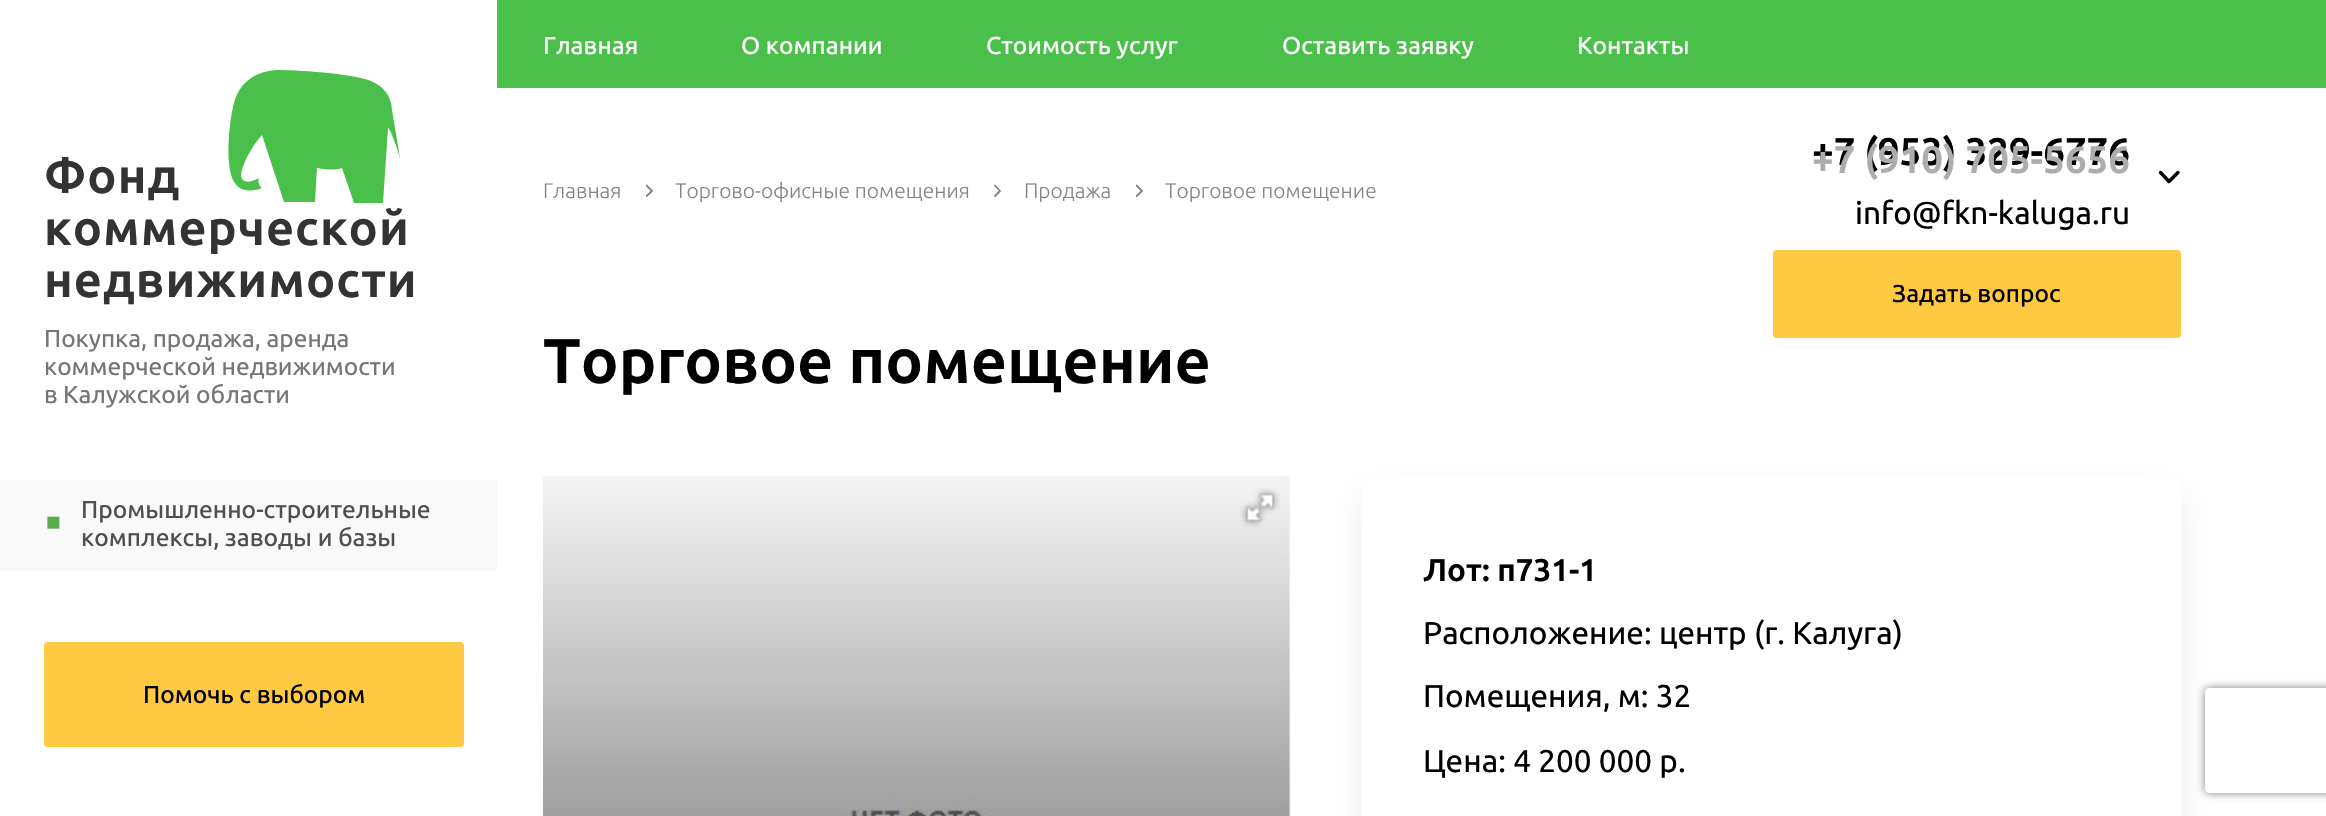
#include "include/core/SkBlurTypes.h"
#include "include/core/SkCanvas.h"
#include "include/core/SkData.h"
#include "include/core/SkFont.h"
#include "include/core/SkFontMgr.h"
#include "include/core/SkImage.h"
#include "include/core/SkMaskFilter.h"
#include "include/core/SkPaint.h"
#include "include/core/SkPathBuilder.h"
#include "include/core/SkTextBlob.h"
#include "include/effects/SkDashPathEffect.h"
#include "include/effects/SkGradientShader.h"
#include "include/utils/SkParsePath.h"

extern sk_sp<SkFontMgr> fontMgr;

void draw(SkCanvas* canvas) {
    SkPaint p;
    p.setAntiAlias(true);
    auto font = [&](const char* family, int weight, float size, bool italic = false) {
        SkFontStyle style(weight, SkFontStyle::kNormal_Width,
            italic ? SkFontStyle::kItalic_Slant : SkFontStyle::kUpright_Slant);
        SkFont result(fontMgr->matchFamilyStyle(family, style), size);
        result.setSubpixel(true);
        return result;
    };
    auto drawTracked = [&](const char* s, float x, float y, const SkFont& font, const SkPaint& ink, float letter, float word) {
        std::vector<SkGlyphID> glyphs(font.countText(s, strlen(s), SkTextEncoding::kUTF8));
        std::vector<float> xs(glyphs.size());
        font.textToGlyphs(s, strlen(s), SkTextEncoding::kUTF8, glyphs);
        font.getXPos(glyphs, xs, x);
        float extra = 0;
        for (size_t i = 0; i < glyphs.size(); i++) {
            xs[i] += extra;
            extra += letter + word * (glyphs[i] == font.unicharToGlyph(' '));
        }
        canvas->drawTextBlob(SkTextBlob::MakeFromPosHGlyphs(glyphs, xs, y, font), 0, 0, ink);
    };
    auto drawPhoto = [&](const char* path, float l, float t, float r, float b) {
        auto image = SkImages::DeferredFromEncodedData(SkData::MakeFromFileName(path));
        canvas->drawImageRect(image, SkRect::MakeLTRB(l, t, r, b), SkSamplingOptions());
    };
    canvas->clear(0xFFFFFFFF);
    p.setColor(0xFF4AC04A);
    canvas->drawRect(SkRect::MakeLTRB(497, 0, 2326, 88), p);
    auto font1 = font("Ubuntu", 500, 24.5f);
    p.setColor(0xFFFFFFFF);
    {
        const struct { const char* s; float x, y; } items[] = {
            {"Главная", 543, 54},
            {"О компании", 741, 54},
            {"Стоимость услуг", 986, 54},
            {"Оставить заявку", 1282, 54},
            {"Контакты", 1577, 54},
        };
        for (auto [s, x, y] : items) {
            canvas->drawString(s, x, y, font1, p);
        }
    }
    p.setColor(0xFF4AC04A);
    canvas->drawPath(SkPathBuilder().moveTo(284, 202).lineTo(262, 135).cubicTo(247, 152, 237, 176, 243, 180).cubicTo(248, 184, 255, 180, 259, 178).cubicTo(258, 180, 258, 185, 262, 188).cubicTo(243, 195, 236, 186, 233, 180).cubicTo(227, 168, 227, 135, 233, 107).cubicTo(239, 79, 259, 71, 277, 70).cubicTo(295, 70, 351, 73, 371, 81).cubicTo(388, 88, 392, 102, 392, 110).lineTo(400, 158).cubicTo(397, 148, 390, 128, 388, 128).lineTo(383, 203).lineTo(354, 203).lineTo(342, 168).cubicTo(333, 171, 322, 169, 317, 168).lineTo(315, 202).close().detach(), p);
    auto font2 = font("Ubuntu", 700, 48.75f);
    p.setColor(0xFF333333);
    {
        const struct { const char* s; float x, y; } items[] = {
            {"Фонд", 44, 193},
            {"коммерческой", 44, 245},
            {"недвижимости", 44, 297},
        };
        for (auto [s, x, y] : items) {
            drawTracked(s, x, y, font2, p, 1, 0);
        }
    }
    auto font3 = font("Ubuntu", 400, 24.5f);
    p.setColor(0xFF757575);
    {
        const struct { const char* s; float x, y; } items[] = {
            {"Покупка, продажа, аренда", 44, 347},
            {"коммерческой недвижимости", 44, 375},
            {"в Калужской области", 44, 403},
        };
        for (auto [s, x, y] : items) {
            canvas->drawString(s, x, y, font3, p);
        }
    }
    p.setColor(0xFFF9F9F9);
    canvas->drawRect(SkRect::MakeLTRB(0, 480, 497, 571), p);
    auto font4 = font("Liberation Sans", 400, 24.5f);
    p.setColor(0xFF5BAA4E);
    canvas->drawString("■", 46, 530, font4, p);
    p.setColor(0xFF4F4F4F);
    canvas->drawString("Промышленно-строительные", 81, 518, font1, p);
    canvas->drawString("комплексы, заводы и базы", 81, 546, font1, p);
    p.setColor(0xFFFFCA42);
    canvas->drawRoundRect(SkRect::MakeLTRB(44, 642, 464, 747), 4, 4, p);
    p.setColor(0xFF000000);
    canvas->drawString("Помочь с выбором", 143, 703, font1, p);
    auto font5 = font("Ubuntu", 700, 38.5f);
    canvas->drawString("+7 (953) 329-6776", 1812, 165, font5, p);
    p.setColor(0xFFADADAD);
    canvas->drawString("+7 (910) 705-5656", 1812, 173, font5, p);
    p.setStyle(SkPaint::kStroke_Style);
    p.setStrokeWidth(3.5f);
    p.setStrokeCap(SkPaint::kRound_Cap);
    p.setStrokeJoin(SkPaint::kRound_Join);
    p.setColor(0xFF000000);
    canvas->drawPath(SkPathBuilder().moveTo(2160.5f, 172.5f).lineTo(2169, 181.5f).lineTo(2178, 172.5f).detach(), p);
    auto font6 = font("Ubuntu", 400, 31.5f);
    p.setStyle(SkPaint::kFill_Style);
    canvas->drawString("info@fkn-kaluga.ru", 1855, 224, font6, p);
    p.setColor(0xFFFFCA42);
    canvas->drawRoundRect(SkRect::MakeLTRB(1773, 250, 2181, 338), 4, 4, p);
    p.setColor(0xFF000000);
    canvas->drawString("Задать вопрос", 1892, 302, font1, p);
    auto font7 = font("Ubuntu", 300, 21);
    p.setColor(0xFF828282);
    canvas->drawString("Главная", 543, 198, font7, p);
    canvas->save();
    canvas->clipRect(SkRect::MakeLTRB(646, 184, 653, 198));
    p.setStyle(SkPaint::kStroke_Style);
    p.setStrokeWidth(1.8f);
    canvas->drawPath(SkPathBuilder().moveTo(646.5f, 185.5f).lineTo(652, 191).lineTo(646.5f, 196).detach(), p);
    canvas->restore();
    p.setStyle(SkPaint::kFill_Style);
    canvas->drawString("Торгово-офисные помещения", 675, 198, font7, p);
    p.setStyle(SkPaint::kStroke_Style);
    canvas->drawPath(SkPathBuilder().moveTo(995, 185.5f).lineTo(1000, 191).lineTo(995, 196).detach(), p);
    p.setStyle(SkPaint::kFill_Style);
    canvas->drawString("Продажа", 1024, 198, font7, p);
    canvas->save();
    canvas->clipRect(SkRect::MakeLTRB(1136, 184, 1143, 198));
    p.setStyle(SkPaint::kStroke_Style);
    canvas->drawPath(SkPathBuilder().moveTo(1136.5f, 185.5f).lineTo(1142, 191).lineTo(1136.5f, 196).detach(), p);
    canvas->restore();
    p.setStyle(SkPaint::kFill_Style);
    canvas->drawString("Торговое помещение", 1165, 198, font7, p);
    auto font8 = font("Ubuntu", 700, 63);
    p.setColor(0xFF000000);
    canvas->drawString("Торговое помещение", 543, 383, font8, p);
    drawPhoto("media/1.png", 543, 476, 1291, 816);
    drawPhoto("media/2.png", 1240, 488, 1280, 527);
    p.setColor(0x121E1F20);
    p.setMaskFilter(SkMaskFilter::MakeBlur(kNormal_SkBlurStyle, 17.5f));
    canvas->drawRoundRect(SkRect::MakeLTRB(1362, 494, 2181, 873), 4, 4, p);
    p.setMaskFilter(nullptr);
    p.setColor(0xFFFFFFFF);
    canvas->drawRoundRect(SkRect::MakeLTRB(1362, 476, 2181, 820), 4, 4, p);
    auto font9 = font("Ubuntu", 700, 31.5f);
    p.setColor(0xFF000000);
    canvas->drawString("Лот: п731-1", 1423, 581, font9, p);
    {
        const struct { const char* s; float x, y; } items[] = {
            {"Расположение: центр (г. Калуга)", 1423, 644},
            {"Помещения, м: 32", 1423, 707},
            {"Цена: 4 200 000 р.", 1423, 772},
        };
        for (auto [s, x, y] : items) {
            canvas->drawString(s, x, y, font6, p);
        }
    }
    canvas->save();
    canvas->clipPath(SkPathBuilder(SkPathFillType::kEvenOdd).moveTo(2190, 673).lineTo(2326, 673).lineTo(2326, 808).lineTo(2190, 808).close().moveTo(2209, 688).lineTo(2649, 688).cubicTo(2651, 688, 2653, 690, 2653, 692).lineTo(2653, 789).cubicTo(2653, 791, 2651, 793, 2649, 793).lineTo(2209, 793).cubicTo(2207, 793, 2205, 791, 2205, 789).lineTo(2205, 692).cubicTo(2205, 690, 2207, 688, 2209, 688).close().detach(), true);
    p.setColor(0xFF808080);
    p.setMaskFilter(SkMaskFilter::MakeBlur(kNormal_SkBlurStyle, 4.5f));
    canvas->drawRoundRect(SkRect::MakeLTRB(2205, 688, 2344, 793), 4, 4, p);
    p.setMaskFilter(nullptr);
    canvas->restore();
}
